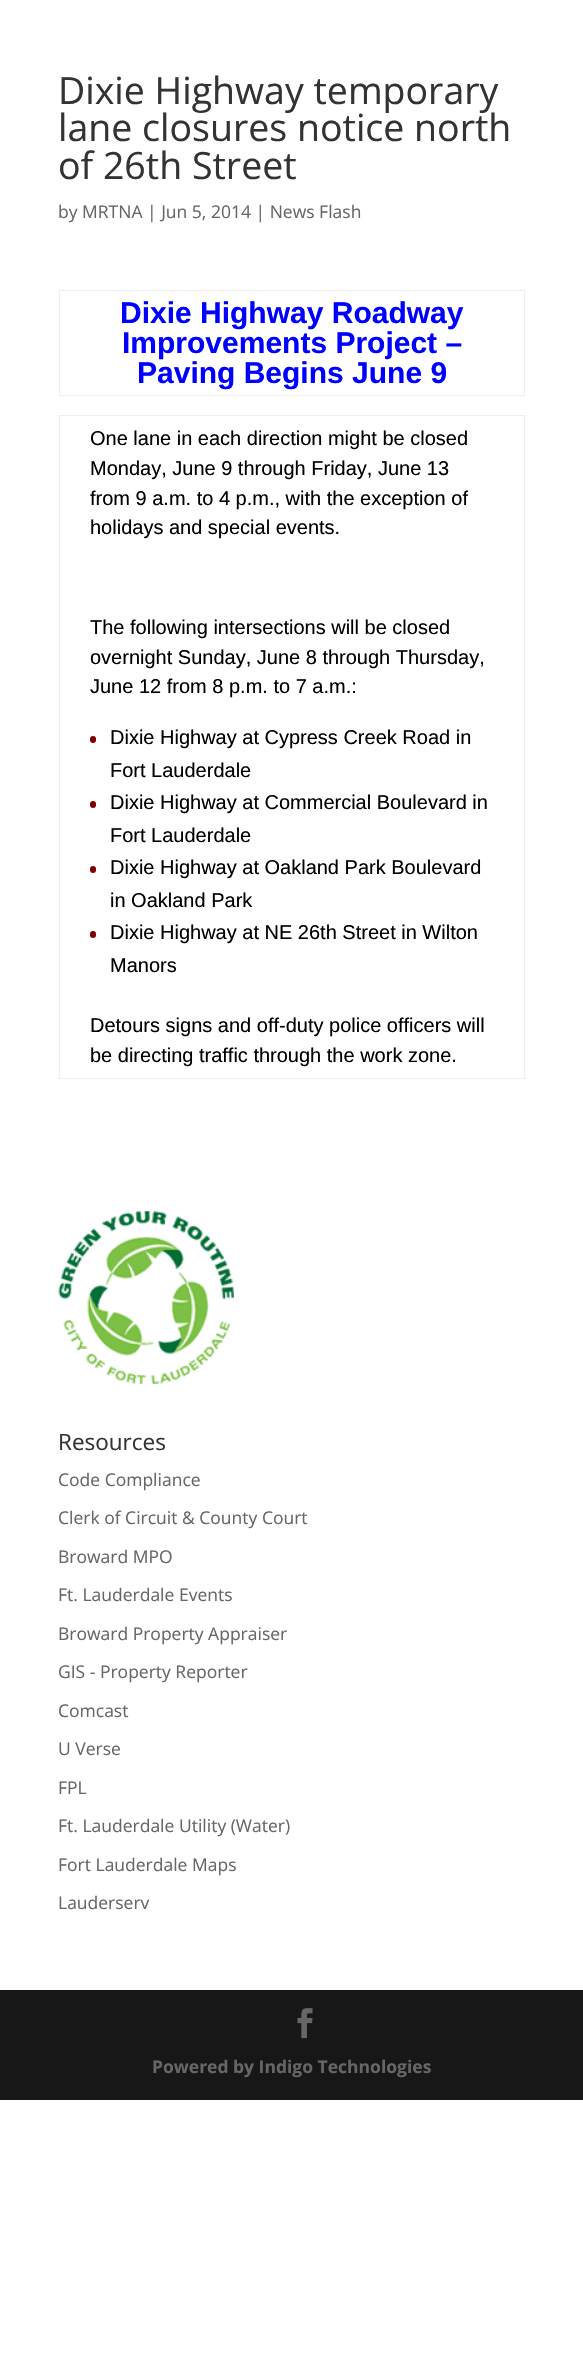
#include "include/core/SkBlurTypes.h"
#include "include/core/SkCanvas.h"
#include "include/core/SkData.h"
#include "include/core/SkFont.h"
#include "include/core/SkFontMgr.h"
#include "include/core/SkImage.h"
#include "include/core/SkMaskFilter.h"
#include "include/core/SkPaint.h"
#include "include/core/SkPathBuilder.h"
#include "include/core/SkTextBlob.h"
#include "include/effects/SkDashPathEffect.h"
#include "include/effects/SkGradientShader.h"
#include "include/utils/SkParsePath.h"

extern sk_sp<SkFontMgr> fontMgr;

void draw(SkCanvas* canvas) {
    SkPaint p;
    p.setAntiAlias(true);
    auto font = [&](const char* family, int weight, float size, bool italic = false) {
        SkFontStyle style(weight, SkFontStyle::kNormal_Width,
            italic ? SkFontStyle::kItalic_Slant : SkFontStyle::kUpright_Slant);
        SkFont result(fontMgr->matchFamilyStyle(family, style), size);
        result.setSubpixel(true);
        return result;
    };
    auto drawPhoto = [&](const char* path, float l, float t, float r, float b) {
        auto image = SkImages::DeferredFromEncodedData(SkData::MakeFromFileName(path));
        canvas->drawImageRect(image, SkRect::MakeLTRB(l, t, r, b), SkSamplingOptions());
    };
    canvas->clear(0xFFFFFFFF);
    auto font1 = font("Open Sans", 400, 37.5f);
    p.setColor(0xFF333333);
    {
        const struct { const char* s; float x, y; } items[] = {
            {"Dixie Highway temporary", 58, 104},
            {"lane closures notice north", 58, 141},
            {"of 26th Street", 58, 179},
        };
        for (auto [s, x, y] : items) {
            canvas->drawString(s, x, y, font1, p);
        }
    }
    auto font2 = font("Open Sans", 400, 17.5f);
    p.setColor(0xFF666666);
    canvas->drawString("by MRTNA | Jun 5, 2014 | News Flash", 58, 218, font2, p);
    {
        const struct { float l, t, r, b; SkColor color; } items[] = {
            {59, 290, 525, 291, 0xFFEEEEEE},
            {524, 290, 525, 396, 0xFFEEEEEE},
            {59, 395, 525, 396, 0xFFEEEEEE},
            {59, 290, 60, 396, 0xFFEEEEEE},
        };
        for (auto [l, t, r, b, color] : items) {
            p.setColor(color);
            canvas->drawRect(SkRect::MakeLTRB(l, t, r, b), p);
        }
    }
    auto font3 = font("Liberation Sans", 700, 30);
    p.setColor(0xFF0000FF);
    {
        const struct { const char* s; float x, y; } items[] = {
            {"Dixie Highway Roadway", 120, 323},
            {"Improvements Project –", 122, 353},
            {"Paving Begins June 9", 137, 383},
        };
        for (auto [s, x, y] : items) {
            canvas->drawString(s, x, y, font3, p);
        }
    }
    {
        const struct { float l, t, r, b; SkColor color; } items[] = {
            {59, 415, 525, 416, 0xFFEEEEEE},
            {524, 415, 525, 1079, 0xFFEEEEEE},
            {59, 1078, 525, 1079, 0xFFEEEEEE},
            {59, 415, 60, 1079, 0xFFEEEEEE},
        };
        for (auto [l, t, r, b, color] : items) {
            p.setColor(color);
            canvas->drawRect(SkRect::MakeLTRB(l, t, r, b), p);
        }
    }
    auto font4 = font("Liberation Sans", 400, 20);
    p.setColor(0xFF000000);
    {
        const struct { const char* s; float x, y; } items[] = {
            {"One lane in each direction might be closed", 90, 445},
            {"Monday, June 9 through Friday, June 13", 90, 475},
            {"from 9 a.m. to 4 p.m., with the exception of", 90, 505},
            {"holidays and special events.", 90, 534},
            {"The following intersections will be closed", 90, 634},
            {"overnight Sunday, June 8 through Thursday,", 90, 664},
            {"June 12 from 8 p.m. to 7 a.m.:", 90, 693},
        };
        for (auto [s, x, y] : items) {
            canvas->drawString(s, x, y, font4, p);
        }
    }
    p.setColor(0xFF800000);
    canvas->drawRoundRect(SkRect::MakeLTRB(90, 736, 96, 743), 3, 3, p);
    p.setColor(0xFF000000);
    canvas->drawString("Dixie Highway at Cypress Creek Road in", 110, 744, font4, p);
    canvas->drawString("Fort Lauderdale", 110, 777, font4, p);
    p.setColor(0xFF800000);
    canvas->drawRoundRect(SkRect::MakeLTRB(90, 801, 96, 808), 3, 3, p);
    p.setColor(0xFF000000);
    canvas->drawString("Dixie Highway at Commercial Boulevard in", 110, 809, font4, p);
    canvas->drawString("Fort Lauderdale", 110, 842, font4, p);
    p.setColor(0xFF800000);
    canvas->drawRoundRect(SkRect::MakeLTRB(90, 866, 96, 873), 3, 3, p);
    p.setColor(0xFF000000);
    canvas->drawString("Dixie Highway at Oakland Park Boulevard", 110, 874, font4, p);
    canvas->drawString("in Oakland Park", 110, 907, font4, p);
    p.setColor(0xFF800000);
    canvas->drawRoundRect(SkRect::MakeLTRB(90, 931, 96, 938), 3, 3, p);
    p.setColor(0xFF000000);
    {
        const struct { const char* s; float x, y; } items[] = {
            {"Dixie Highway at NE 26th Street in Wilton", 110, 939},
            {"Manors", 110, 972},
            {"Detours signs and off-duty police officers will", 90, 1032},
            {"be directing traffic through the work zone.", 90, 1062},
        };
        for (auto [s, x, y] : items) {
            canvas->drawString(s, x, y, font4, p);
        }
    }
    drawPhoto("media/1.png", 58, 1211, 234, 1384);
    auto font5 = font("Open Sans", 400, 22.5f);
    p.setColor(0xFF333333);
    canvas->drawString("Resources", 58, 1450, font5, p);
    p.setColor(0xFF666666);
    {
        const struct { const char* s; float x, y; } items[] = {
            {"Code Compliance", 58, 1486},
            {"Clerk of Circuit & County Court", 58, 1524},
            {"Broward MPO", 58, 1563},
            {"Ft. Lauderdale Events", 58, 1601},
            {"Broward Property Appraiser", 58, 1640},
            {"GIS - Property Reporter", 58, 1678},
            {"Comcast", 58, 1717},
            {"U Verse", 58, 1755},
            {"FPL", 58, 1794},
            {"Ft. Lauderdale Utility (Water)", 58, 1832},
            {"Fort Lauderdale Maps", 58, 1871},
            {"Lauderserv", 58, 1909},
        };
        for (auto [s, x, y] : items) {
            canvas->drawString(s, x, y, font2, p);
        }
    }
    p.setColor(0xFF171717);
    canvas->drawRect(SkRect::MakeLTRB(0, 1990, 583, 2100), p);
    drawPhoto("media/2.png", 297, 2008, 313, 2039);
    auto font6 = font("Open Sans", 700, 17.5f);
    p.setColor(0xFF666666);
    canvas->drawString("Powered by Indigo Technologies", 152, 2073, font6, p);
}
